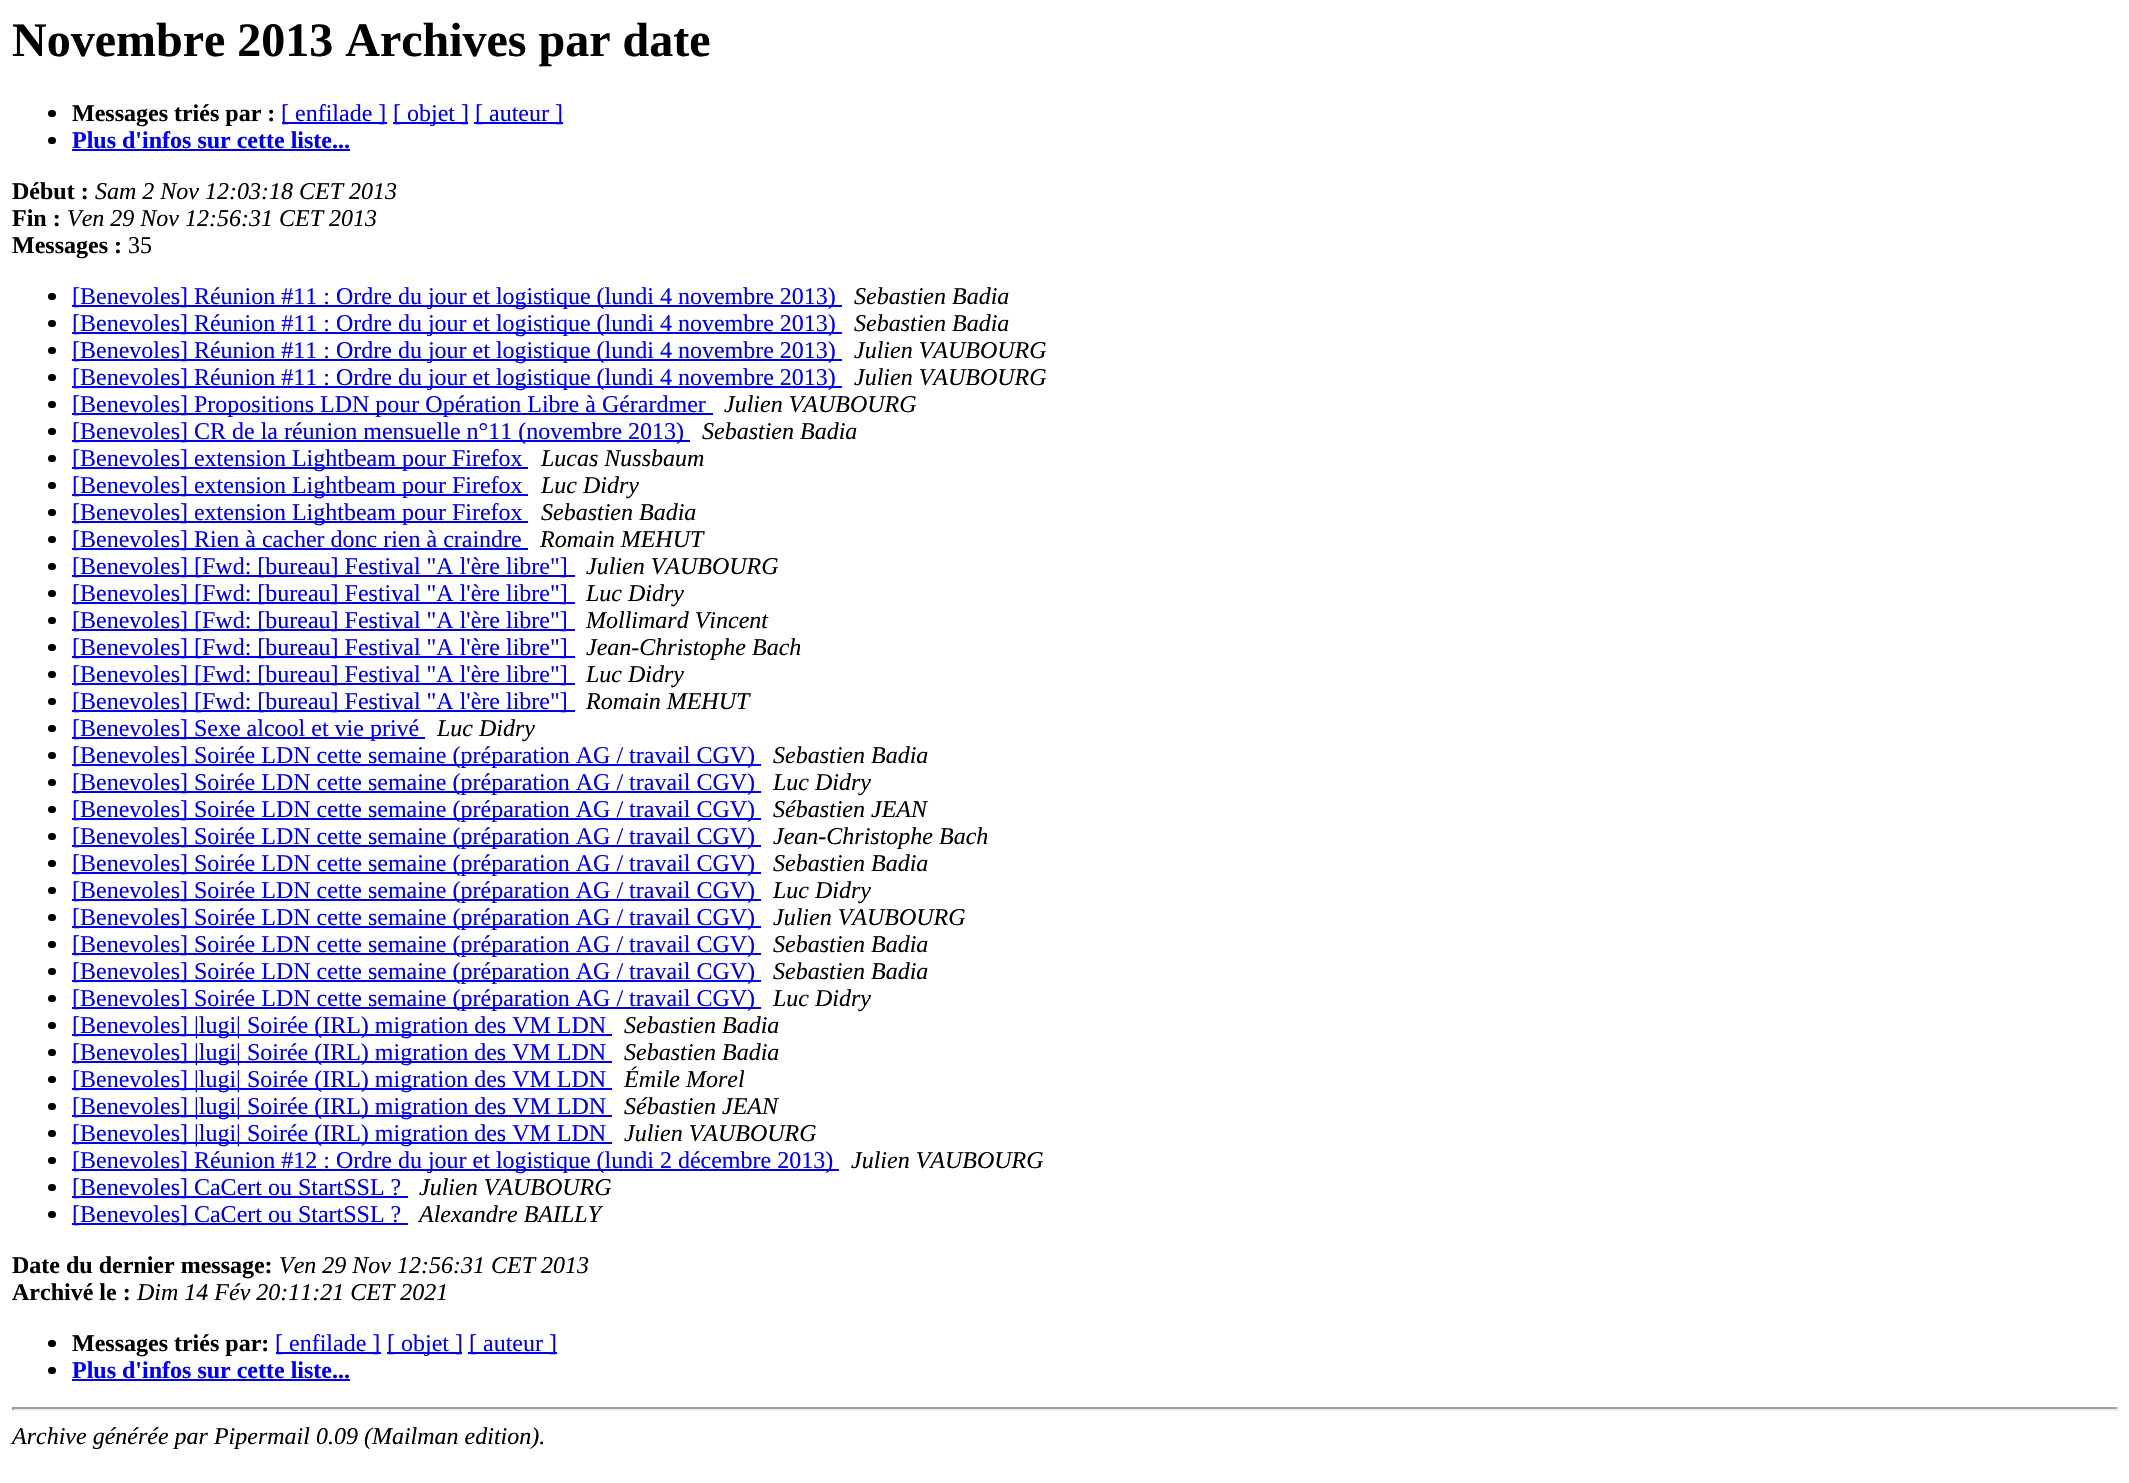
#include "include/core/SkBlurTypes.h"
#include "include/core/SkCanvas.h"
#include "include/core/SkData.h"
#include "include/core/SkFont.h"
#include "include/core/SkFontMgr.h"
#include "include/core/SkImage.h"
#include "include/core/SkMaskFilter.h"
#include "include/core/SkPaint.h"
#include "include/core/SkPathBuilder.h"
#include "include/core/SkTextBlob.h"
#include "include/effects/SkDashPathEffect.h"
#include "include/effects/SkGradientShader.h"
#include "include/utils/SkParsePath.h"

extern sk_sp<SkFontMgr> fontMgr;

void draw(SkCanvas* canvas) {
    SkPaint p;
    p.setAntiAlias(true);
    auto font = [&](const char* family, int weight, float size, bool italic = false) {
        SkFontStyle style(weight, SkFontStyle::kNormal_Width,
            italic ? SkFontStyle::kItalic_Slant : SkFontStyle::kUpright_Slant);
        SkFont result(fontMgr->matchFamilyStyle(family, style), size);
        result.setSubpixel(true);
        return result;
    };
    canvas->clear(0xFFFFFFFF);
    auto font1 = font("Liberation Serif", 700, 48);
    p.setColor(0xFF000000);
    canvas->drawString("Novembre 2013 Archives par date", 12, 56, font1, p);
    canvas->drawRoundRect(SkRect::MakeLTRB(48, 110, 56, 117), 3.5f, 3.5f, p);
    auto font2 = font("Liberation Serif", 700, 24);
    canvas->drawString("Messages triés par :", 72, 121, font2, p);
    p.setColor(0xFF0000EE);
    canvas->drawRect(SkRect::MakeLTRB(282, 122, 387, 124), p);
    auto font3 = font("Liberation Serif", 400, 24);
    canvas->drawString("[ enfilade ]", 281, 121, font3, p);
    canvas->drawRect(SkRect::MakeLTRB(393, 122, 468, 124), p);
    canvas->drawString("[ objet ]", 393, 121, font3, p);
    canvas->drawRect(SkRect::MakeLTRB(474, 122, 563, 124), p);
    canvas->drawString("[ auteur ]", 475, 121, font3, p);
    p.setColor(0xFF000000);
    canvas->drawRoundRect(SkRect::MakeLTRB(48, 137, 56, 144), 3.5f, 3.5f, p);
    p.setColor(0xFF0000EE);
    canvas->drawString("Plus d'infos sur cette liste...", 72, 148, font2, p);
    canvas->drawRect(SkRect::MakeLTRB(72, 149, 350, 151), p);
    p.setColor(0xFF000000);
    canvas->drawString("Début :", 12, 199, font2, p);
    auto font4 = font("Liberation Serif", 400, 24, true);
    canvas->drawString("Sam 2 Nov 12:03:18 CET 2013", 95, 199, font4, p);
    canvas->drawString("Fin :", 12, 226, font2, p);
    canvas->drawString("Ven 29 Nov 12:56:31 CET 2013", 67, 226, font4, p);
    canvas->drawString("Messages :", 12, 253, font2, p);
    canvas->drawString("35", 128, 253, font3, p);
    canvas->drawRoundRect(SkRect::MakeLTRB(48, 293, 56, 300), 3.5f, 3.5f, p);
    p.setColor(0xFF0000EE);
    canvas->drawRect(SkRect::MakeLTRB(72, 305, 842, 307), p);
    canvas->drawString("[Benevoles] Réunion #11 : Ordre du jour et logistique (lundi 4 novembre 2013)", 72, 304, font3, p);
    p.setColor(0xFF000000);
    canvas->drawString("Sebastien Badia", 854, 304, font4, p);
    canvas->drawRoundRect(SkRect::MakeLTRB(48, 320, 56, 327), 3.5f, 3.5f, p);
    p.setColor(0xFF0000EE);
    canvas->drawRect(SkRect::MakeLTRB(72, 332, 842, 334), p);
    canvas->drawString("[Benevoles] Réunion #11 : Ordre du jour et logistique (lundi 4 novembre 2013)", 72, 331, font3, p);
    p.setColor(0xFF000000);
    canvas->drawString("Sebastien Badia", 854, 331, font4, p);
    canvas->drawRoundRect(SkRect::MakeLTRB(48, 347, 56, 354), 3.5f, 3.5f, p);
    p.setColor(0xFF0000EE);
    canvas->drawRect(SkRect::MakeLTRB(72, 359, 842, 361), p);
    canvas->drawString("[Benevoles] Réunion #11 : Ordre du jour et logistique (lundi 4 novembre 2013)", 72, 358, font3, p);
    p.setColor(0xFF000000);
    canvas->drawString("Julien VAUBOURG", 854, 358, font4, p);
    canvas->drawRoundRect(SkRect::MakeLTRB(48, 374, 56, 381), 3.5f, 3.5f, p);
    p.setColor(0xFF0000EE);
    canvas->drawRect(SkRect::MakeLTRB(72, 386, 842, 388), p);
    canvas->drawString("[Benevoles] Réunion #11 : Ordre du jour et logistique (lundi 4 novembre 2013)", 72, 385, font3, p);
    p.setColor(0xFF000000);
    canvas->drawString("Julien VAUBOURG", 854, 385, font4, p);
    canvas->drawRoundRect(SkRect::MakeLTRB(48, 401, 56, 408), 3.5f, 3.5f, p);
    p.setColor(0xFF0000EE);
    canvas->drawRect(SkRect::MakeLTRB(72, 413, 713, 415), p);
    canvas->drawString("[Benevoles] Propositions LDN pour Opération Libre à Gérardmer", 72, 412, font3, p);
    p.setColor(0xFF000000);
    canvas->drawString("Julien VAUBOURG", 724, 412, font4, p);
    canvas->drawRoundRect(SkRect::MakeLTRB(48, 428, 56, 435), 3.5f, 3.5f, p);
    p.setColor(0xFF0000EE);
    canvas->drawRect(SkRect::MakeLTRB(72, 440, 690, 442), p);
    canvas->drawString("[Benevoles] CR de la réunion mensuelle n°11 (novembre 2013)", 72, 439, font3, p);
    p.setColor(0xFF000000);
    canvas->drawString("Sebastien Badia", 702, 439, font4, p);
    canvas->drawRoundRect(SkRect::MakeLTRB(48, 455, 56, 462), 3.5f, 3.5f, p);
    p.setColor(0xFF0000EE);
    canvas->drawRect(SkRect::MakeLTRB(72, 467, 528, 469), p);
    canvas->drawString("[Benevoles] extension Lightbeam pour Firefox", 72, 466, font3, p);
    p.setColor(0xFF000000);
    canvas->drawString("Lucas Nussbaum", 541, 466, font4, p);
    canvas->drawRoundRect(SkRect::MakeLTRB(48, 482, 56, 489), 3.5f, 3.5f, p);
    p.setColor(0xFF0000EE);
    canvas->drawRect(SkRect::MakeLTRB(72, 494, 528, 496), p);
    canvas->drawString("[Benevoles] extension Lightbeam pour Firefox", 72, 493, font3, p);
    p.setColor(0xFF000000);
    canvas->drawString("Luc Didry", 541, 493, font4, p);
    canvas->drawRoundRect(SkRect::MakeLTRB(48, 509, 56, 516), 3.5f, 3.5f, p);
    p.setColor(0xFF0000EE);
    canvas->drawRect(SkRect::MakeLTRB(72, 521, 528, 523), p);
    canvas->drawString("[Benevoles] extension Lightbeam pour Firefox", 72, 520, font3, p);
    p.setColor(0xFF000000);
    canvas->drawString("Sebastien Badia", 541, 520, font4, p);
    canvas->drawRoundRect(SkRect::MakeLTRB(48, 536, 56, 543), 3.5f, 3.5f, p);
    p.setColor(0xFF0000EE);
    canvas->drawRect(SkRect::MakeLTRB(72, 548, 528, 550), p);
    canvas->drawString("[Benevoles] Rien à cacher donc rien à craindre", 72, 547, font3, p);
    p.setColor(0xFF000000);
    canvas->drawString("Romain MEHUT", 540, 547, font4, p);
    canvas->drawRoundRect(SkRect::MakeLTRB(48, 563, 56, 570), 3.5f, 3.5f, p);
    p.setColor(0xFF0000EE);
    canvas->drawRect(SkRect::MakeLTRB(72, 575, 575, 577), p);
    canvas->drawString("[Benevoles] [Fwd: [bureau] Festival \"A l'ère libre\"]", 72, 574, font3, p);
    p.setColor(0xFF000000);
    canvas->drawString("Julien VAUBOURG", 586, 574, font4, p);
    canvas->drawRoundRect(SkRect::MakeLTRB(48, 590, 56, 597), 3.5f, 3.5f, p);
    p.setColor(0xFF0000EE);
    canvas->drawRect(SkRect::MakeLTRB(72, 602, 575, 604), p);
    canvas->drawString("[Benevoles] [Fwd: [bureau] Festival \"A l'ère libre\"]", 72, 601, font3, p);
    p.setColor(0xFF000000);
    canvas->drawString("Luc Didry", 586, 601, font4, p);
    canvas->drawRoundRect(SkRect::MakeLTRB(48, 617, 56, 624), 3.5f, 3.5f, p);
    p.setColor(0xFF0000EE);
    canvas->drawRect(SkRect::MakeLTRB(72, 629, 575, 631), p);
    canvas->drawString("[Benevoles] [Fwd: [bureau] Festival \"A l'ère libre\"]", 72, 628, font3, p);
    p.setColor(0xFF000000);
    canvas->drawString("Mollimard Vincent", 586, 628, font4, p);
    canvas->drawRoundRect(SkRect::MakeLTRB(48, 644, 56, 651), 3.5f, 3.5f, p);
    p.setColor(0xFF0000EE);
    canvas->drawRect(SkRect::MakeLTRB(72, 656, 575, 658), p);
    canvas->drawString("[Benevoles] [Fwd: [bureau] Festival \"A l'ère libre\"]", 72, 655, font3, p);
    p.setColor(0xFF000000);
    canvas->drawString("Jean-Christophe Bach", 586, 655, font4, p);
    canvas->drawRoundRect(SkRect::MakeLTRB(48, 671, 56, 678), 3.5f, 3.5f, p);
    p.setColor(0xFF0000EE);
    canvas->drawRect(SkRect::MakeLTRB(72, 683, 575, 685), p);
    canvas->drawString("[Benevoles] [Fwd: [bureau] Festival \"A l'ère libre\"]", 72, 682, font3, p);
    p.setColor(0xFF000000);
    canvas->drawString("Luc Didry", 586, 682, font4, p);
    canvas->drawRoundRect(SkRect::MakeLTRB(48, 698, 56, 705), 3.5f, 3.5f, p);
    p.setColor(0xFF0000EE);
    canvas->drawRect(SkRect::MakeLTRB(72, 710, 575, 712), p);
    canvas->drawString("[Benevoles] [Fwd: [bureau] Festival \"A l'ère libre\"]", 72, 709, font3, p);
    p.setColor(0xFF000000);
    canvas->drawString("Romain MEHUT", 586, 709, font4, p);
    canvas->drawRoundRect(SkRect::MakeLTRB(48, 725, 56, 732), 3.5f, 3.5f, p);
    p.setColor(0xFF0000EE);
    canvas->drawRect(SkRect::MakeLTRB(72, 737, 425, 739), p);
    canvas->drawString("[Benevoles] Sexe alcool et vie privé", 72, 736, font3, p);
    p.setColor(0xFF000000);
    canvas->drawString("Luc Didry", 437, 736, font4, p);
    canvas->drawRoundRect(SkRect::MakeLTRB(48, 752, 56, 759), 3.5f, 3.5f, p);
    p.setColor(0xFF0000EE);
    canvas->drawRect(SkRect::MakeLTRB(72, 764, 761, 766), p);
    canvas->drawString("[Benevoles] Soirée LDN cette semaine (préparation AG / travail CGV)", 72, 763, font3, p);
    p.setColor(0xFF000000);
    canvas->drawString("Sebastien Badia", 773, 763, font4, p);
    canvas->drawRoundRect(SkRect::MakeLTRB(48, 779, 56, 786), 3.5f, 3.5f, p);
    p.setColor(0xFF0000EE);
    canvas->drawRect(SkRect::MakeLTRB(72, 791, 761, 793), p);
    canvas->drawString("[Benevoles] Soirée LDN cette semaine (préparation AG / travail CGV)", 72, 790, font3, p);
    p.setColor(0xFF000000);
    canvas->drawString("Luc Didry", 773, 790, font4, p);
    canvas->drawRoundRect(SkRect::MakeLTRB(48, 806, 56, 813), 3.5f, 3.5f, p);
    p.setColor(0xFF0000EE);
    canvas->drawRect(SkRect::MakeLTRB(72, 818, 761, 820), p);
    canvas->drawString("[Benevoles] Soirée LDN cette semaine (préparation AG / travail CGV)", 72, 817, font3, p);
    p.setColor(0xFF000000);
    canvas->drawString("Sébastien JEAN", 773, 817, font4, p);
    canvas->drawRoundRect(SkRect::MakeLTRB(48, 833, 56, 840), 3.5f, 3.5f, p);
    p.setColor(0xFF0000EE);
    canvas->drawRect(SkRect::MakeLTRB(72, 845, 761, 847), p);
    canvas->drawString("[Benevoles] Soirée LDN cette semaine (préparation AG / travail CGV)", 72, 844, font3, p);
    p.setColor(0xFF000000);
    canvas->drawString("Jean-Christophe Bach", 773, 844, font4, p);
    canvas->drawRoundRect(SkRect::MakeLTRB(48, 860, 56, 867), 3.5f, 3.5f, p);
    p.setColor(0xFF0000EE);
    canvas->drawRect(SkRect::MakeLTRB(72, 872, 761, 874), p);
    canvas->drawString("[Benevoles] Soirée LDN cette semaine (préparation AG / travail CGV)", 72, 871, font3, p);
    p.setColor(0xFF000000);
    canvas->drawString("Sebastien Badia", 773, 871, font4, p);
    canvas->drawRoundRect(SkRect::MakeLTRB(48, 887, 56, 894), 3.5f, 3.5f, p);
    p.setColor(0xFF0000EE);
    canvas->drawRect(SkRect::MakeLTRB(72, 899, 761, 901), p);
    canvas->drawString("[Benevoles] Soirée LDN cette semaine (préparation AG / travail CGV)", 72, 898, font3, p);
    p.setColor(0xFF000000);
    canvas->drawString("Luc Didry", 773, 898, font4, p);
    canvas->drawRoundRect(SkRect::MakeLTRB(48, 914, 56, 921), 3.5f, 3.5f, p);
    p.setColor(0xFF0000EE);
    canvas->drawRect(SkRect::MakeLTRB(72, 926, 761, 928), p);
    canvas->drawString("[Benevoles] Soirée LDN cette semaine (préparation AG / travail CGV)", 72, 925, font3, p);
    p.setColor(0xFF000000);
    canvas->drawString("Julien VAUBOURG", 773, 925, font4, p);
    canvas->drawRoundRect(SkRect::MakeLTRB(48, 941, 56, 948), 3.5f, 3.5f, p);
    p.setColor(0xFF0000EE);
    canvas->drawRect(SkRect::MakeLTRB(72, 953, 761, 955), p);
    canvas->drawString("[Benevoles] Soirée LDN cette semaine (préparation AG / travail CGV)", 72, 952, font3, p);
    p.setColor(0xFF000000);
    canvas->drawString("Sebastien Badia", 773, 952, font4, p);
    canvas->drawRoundRect(SkRect::MakeLTRB(48, 968, 56, 975), 3.5f, 3.5f, p);
    p.setColor(0xFF0000EE);
    canvas->drawRect(SkRect::MakeLTRB(72, 980, 761, 982), p);
    canvas->drawString("[Benevoles] Soirée LDN cette semaine (préparation AG / travail CGV)", 72, 979, font3, p);
    p.setColor(0xFF000000);
    canvas->drawString("Sebastien Badia", 773, 979, font4, p);
    canvas->drawRoundRect(SkRect::MakeLTRB(48, 995, 56, 1002), 3.5f, 3.5f, p);
    p.setColor(0xFF0000EE);
    canvas->drawRect(SkRect::MakeLTRB(72, 1007, 761, 1009), p);
    canvas->drawString("[Benevoles] Soirée LDN cette semaine (préparation AG / travail CGV)", 72, 1006, font3, p);
    p.setColor(0xFF000000);
    canvas->drawString("Luc Didry", 773, 1006, font4, p);
    canvas->drawRoundRect(SkRect::MakeLTRB(48, 1022, 56, 1029), 3.5f, 3.5f, p);
    p.setColor(0xFF0000EE);
    canvas->drawRect(SkRect::MakeLTRB(72, 1034, 612, 1036), p);
    canvas->drawString("[Benevoles] |lugi| Soirée (IRL) migration des VM LDN", 72, 1033, font3, p);
    p.setColor(0xFF000000);
    canvas->drawString("Sebastien Badia", 624, 1033, font4, p);
    canvas->drawRoundRect(SkRect::MakeLTRB(48, 1049, 56, 1056), 3.5f, 3.5f, p);
    p.setColor(0xFF0000EE);
    canvas->drawRect(SkRect::MakeLTRB(72, 1061, 612, 1063), p);
    canvas->drawString("[Benevoles] |lugi| Soirée (IRL) migration des VM LDN", 72, 1060, font3, p);
    p.setColor(0xFF000000);
    canvas->drawString("Sebastien Badia", 624, 1060, font4, p);
    canvas->drawRoundRect(SkRect::MakeLTRB(48, 1076, 56, 1083), 3.5f, 3.5f, p);
    p.setColor(0xFF0000EE);
    canvas->drawRect(SkRect::MakeLTRB(72, 1088, 612, 1090), p);
    canvas->drawString("[Benevoles] |lugi| Soirée (IRL) migration des VM LDN", 72, 1087, font3, p);
    p.setColor(0xFF000000);
    canvas->drawString("Émile Morel", 624, 1087, font4, p);
    canvas->drawRoundRect(SkRect::MakeLTRB(48, 1103, 56, 1110), 3.5f, 3.5f, p);
    p.setColor(0xFF0000EE);
    canvas->drawRect(SkRect::MakeLTRB(72, 1115, 612, 1117), p);
    canvas->drawString("[Benevoles] |lugi| Soirée (IRL) migration des VM LDN", 72, 1114, font3, p);
    p.setColor(0xFF000000);
    canvas->drawString("Sébastien JEAN", 624, 1114, font4, p);
    canvas->drawRoundRect(SkRect::MakeLTRB(48, 1130, 56, 1137), 3.5f, 3.5f, p);
    p.setColor(0xFF0000EE);
    canvas->drawRect(SkRect::MakeLTRB(72, 1142, 612, 1144), p);
    canvas->drawString("[Benevoles] |lugi| Soirée (IRL) migration des VM LDN", 72, 1141, font3, p);
    p.setColor(0xFF000000);
    canvas->drawString("Julien VAUBOURG", 624, 1141, font4, p);
    canvas->drawRoundRect(SkRect::MakeLTRB(48, 1157, 56, 1164), 3.5f, 3.5f, p);
    p.setColor(0xFF0000EE);
    canvas->drawRect(SkRect::MakeLTRB(72, 1169, 839, 1171), p);
    canvas->drawString("[Benevoles] Réunion #12 : Ordre du jour et logistique (lundi 2 décembre 2013)", 72, 1168, font3, p);
    p.setColor(0xFF000000);
    canvas->drawString("Julien VAUBOURG", 851, 1168, font4, p);
    canvas->drawRoundRect(SkRect::MakeLTRB(48, 1184, 56, 1191), 3.5f, 3.5f, p);
    p.setColor(0xFF0000EE);
    canvas->drawRect(SkRect::MakeLTRB(72, 1196, 408, 1198), p);
    canvas->drawString("[Benevoles] CaCert ou StartSSL ?", 72, 1195, font3, p);
    p.setColor(0xFF000000);
    canvas->drawString("Julien VAUBOURG", 419, 1195, font4, p);
    canvas->drawRoundRect(SkRect::MakeLTRB(48, 1211, 56, 1218), 3.5f, 3.5f, p);
    p.setColor(0xFF0000EE);
    canvas->drawRect(SkRect::MakeLTRB(72, 1223, 408, 1225), p);
    canvas->drawString("[Benevoles] CaCert ou StartSSL ?", 72, 1222, font3, p);
    p.setColor(0xFF000000);
    canvas->drawString("Alexandre BAILLY", 419, 1222, font4, p);
    canvas->drawString("Date du dernier message:", 12, 1273, font2, p);
    canvas->drawString("Ven 29 Nov 12:56:31 CET 2013", 279, 1273, font4, p);
    canvas->drawString("Archivé le :", 12, 1300, font2, p);
    canvas->drawString("Dim 14 Fév 20:11:21 CET 2021", 137, 1300, font4, p);
    canvas->drawRoundRect(SkRect::MakeLTRB(48, 1340, 56, 1347), 3.5f, 3.5f, p);
    canvas->drawString("Messages triés par:", 72, 1351, font2, p);
    p.setColor(0xFF0000EE);
    canvas->drawRect(SkRect::MakeLTRB(276, 1352, 381, 1354), p);
    canvas->drawString("[ enfilade ]", 275, 1351, font3, p);
    canvas->drawRect(SkRect::MakeLTRB(387, 1352, 462, 1354), p);
    canvas->drawString("[ objet ]", 387, 1351, font3, p);
    canvas->drawRect(SkRect::MakeLTRB(468, 1352, 557, 1354), p);
    canvas->drawString("[ auteur ]", 469, 1351, font3, p);
    p.setColor(0xFF000000);
    canvas->drawRoundRect(SkRect::MakeLTRB(48, 1367, 56, 1374), 3.5f, 3.5f, p);
    p.setColor(0xFF0000EE);
    canvas->drawString("Plus d'infos sur cette liste...", 72, 1378, font2, p);
    {
        const struct { float l, t, r, b; SkColor color; } items[] = {
            {72, 1379, 350, 1381, 0xFF0000EE},
            {12, 1407, 2118, 1409, 0xFF9F9F9F},
            {2117, 1407, 2119, 1410, 0xFFEEEEEE},
            {12, 1409, 2118, 1411, 0xFFEEEEEE},
            {12, 1407, 14, 1410, 0xFF9F9F9F},
        };
        for (auto [l, t, r, b, color] : items) {
            p.setColor(color);
            canvas->drawRect(SkRect::MakeLTRB(l, t, r, b), p);
        }
    }
    p.setColor(0xFF000000);
    canvas->drawString("Archive générée par Pipermail 0.09 (Mailman edition).", 12, 1444, font4, p);
}
